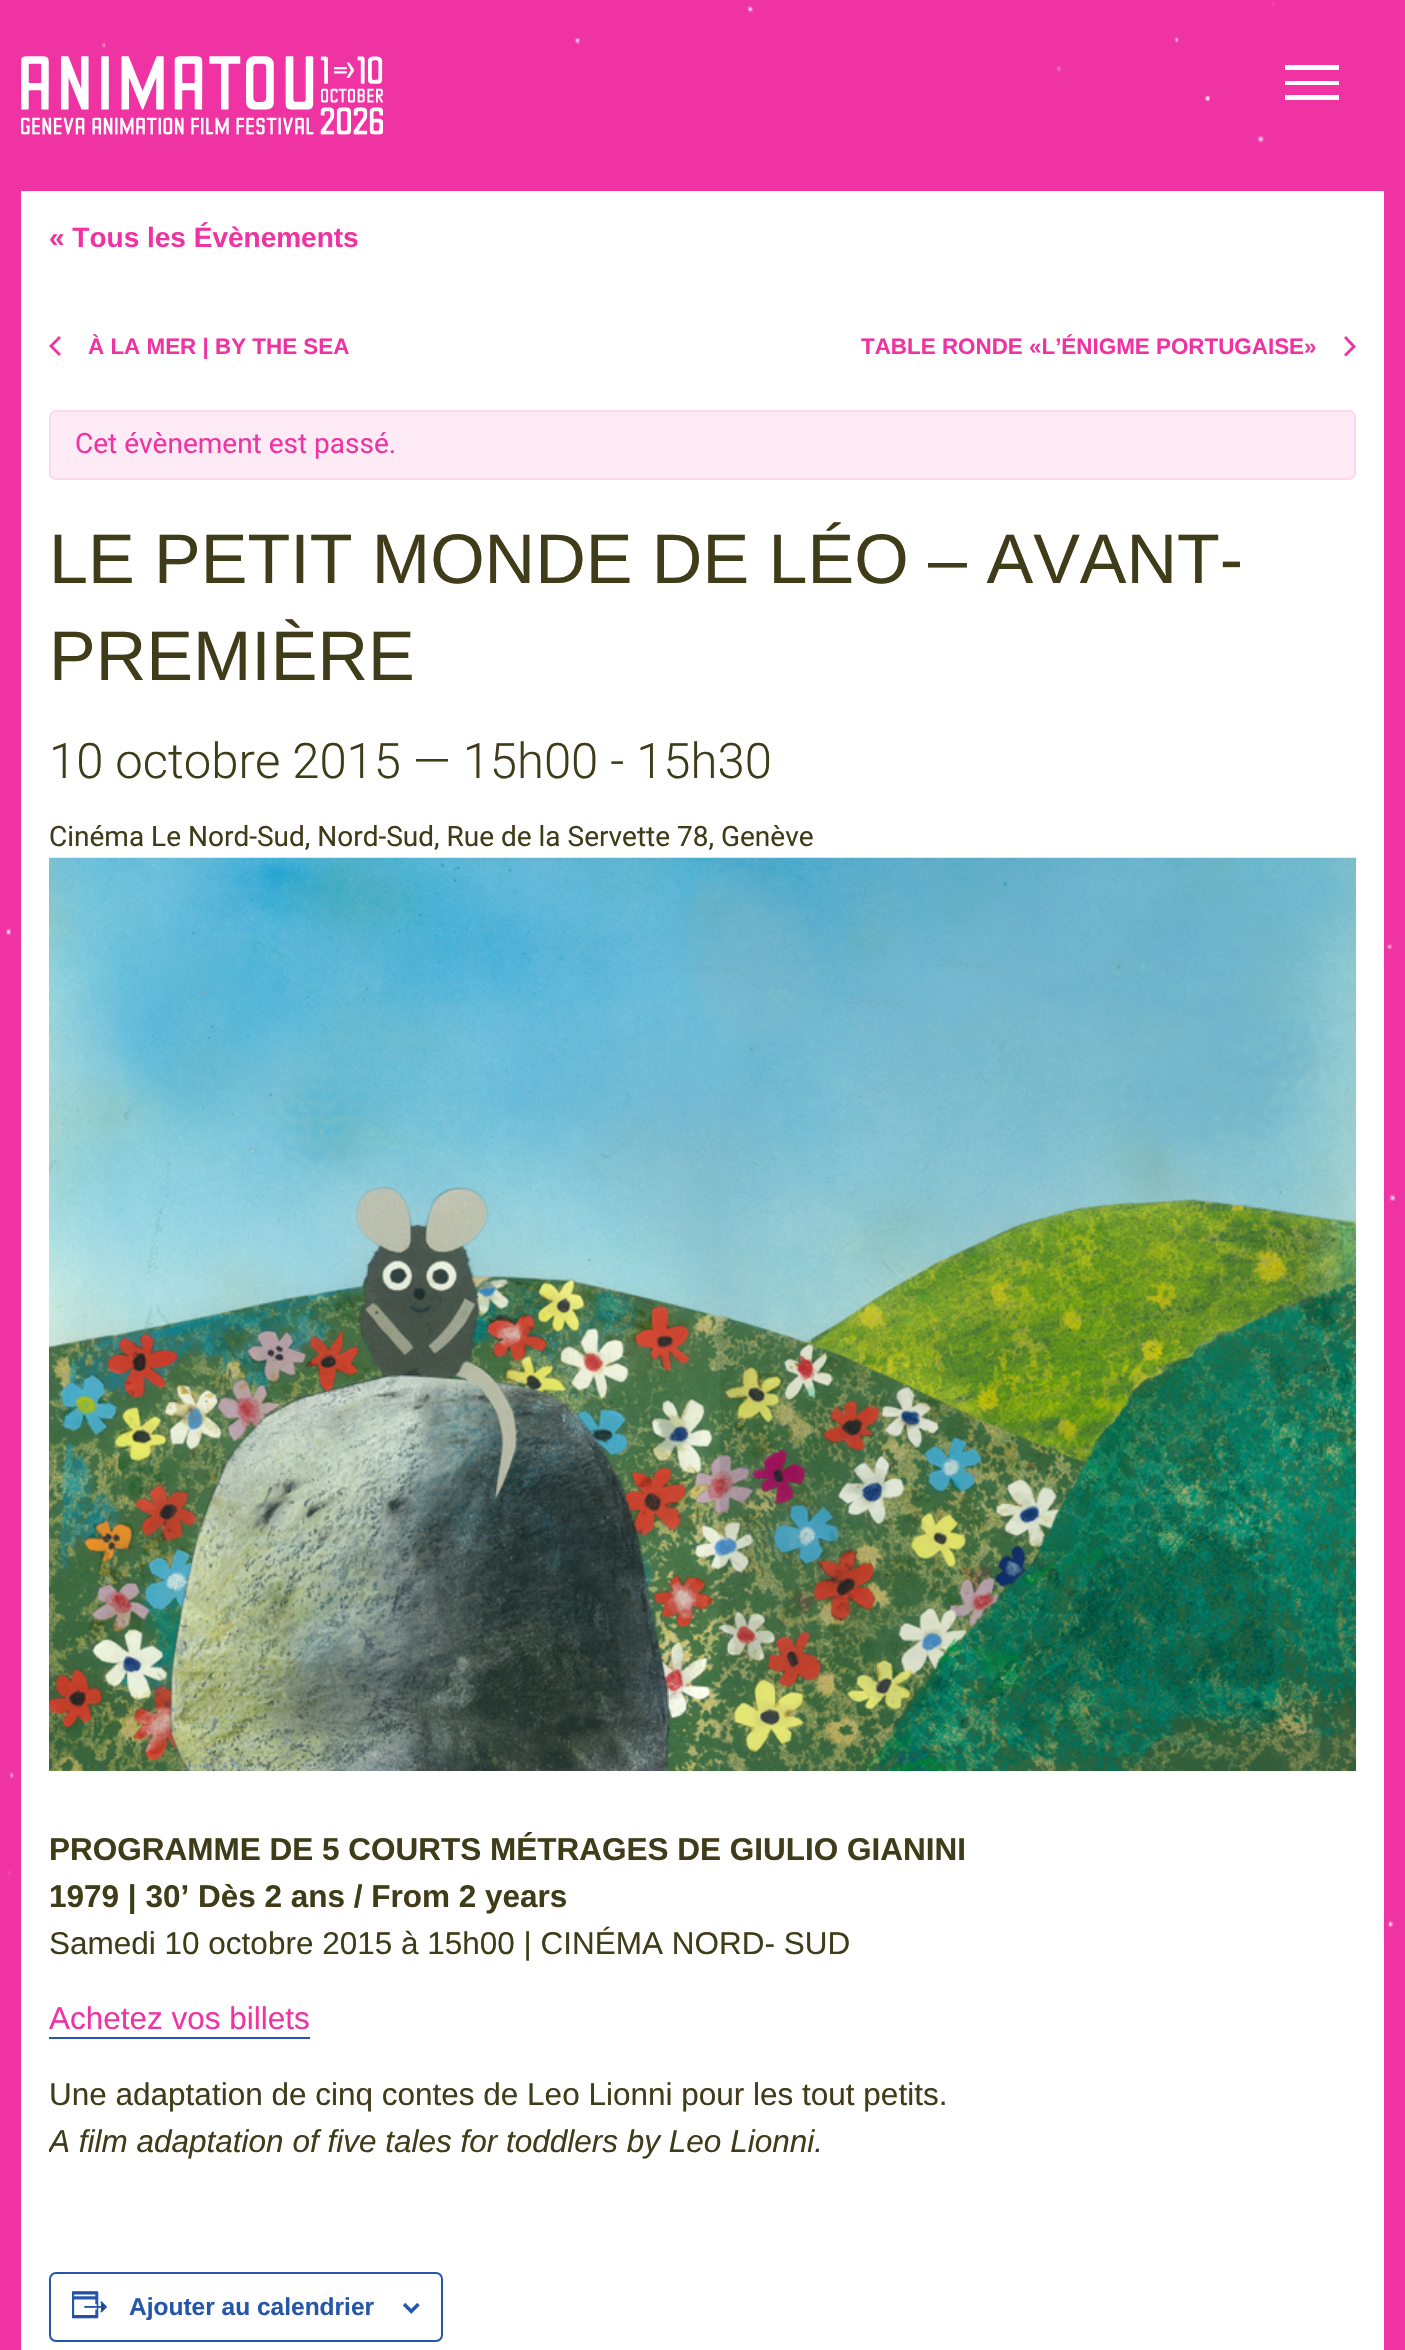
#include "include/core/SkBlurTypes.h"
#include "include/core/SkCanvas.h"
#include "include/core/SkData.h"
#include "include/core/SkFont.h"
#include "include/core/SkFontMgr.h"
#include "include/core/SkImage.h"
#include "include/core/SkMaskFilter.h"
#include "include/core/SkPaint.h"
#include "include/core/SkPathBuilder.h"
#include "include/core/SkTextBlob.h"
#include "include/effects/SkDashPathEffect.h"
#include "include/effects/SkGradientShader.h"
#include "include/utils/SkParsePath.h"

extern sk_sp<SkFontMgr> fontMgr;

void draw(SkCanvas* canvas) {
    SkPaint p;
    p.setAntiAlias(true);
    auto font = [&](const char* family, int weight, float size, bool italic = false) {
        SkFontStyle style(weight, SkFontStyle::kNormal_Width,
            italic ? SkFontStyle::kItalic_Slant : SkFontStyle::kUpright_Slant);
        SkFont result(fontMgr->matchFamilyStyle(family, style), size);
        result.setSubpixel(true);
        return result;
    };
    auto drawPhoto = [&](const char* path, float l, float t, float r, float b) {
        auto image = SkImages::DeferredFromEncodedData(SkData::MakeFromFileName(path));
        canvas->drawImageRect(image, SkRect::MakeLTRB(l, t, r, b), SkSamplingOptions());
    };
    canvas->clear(0xFFFFFFFF);
    {
        const SkColor colors[] = {0xFFF033A3, 0xFFCD43B1};
        const float stops[] = {0.24f, 0.77f};
        const SkPoint ends[] = {{362, -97}, {1043, 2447}};
        p.setShader(SkGradientShader::MakeLinear(ends, colors, stops, 2, SkTileMode::kClamp));
        p.setAlpha(255);
    }
    canvas->drawRect(SkRect::MakeLTRB(0, 0, 1405, 2), p);
    drawPhoto("media/1.png", 0, 2, 1405, 2350);
    drawPhoto("media/2.png", 21, 56, 383, 135);
    p.setShader(nullptr);
    {
        const struct { float l, t, r, b; SkColor color; } items[] = {
            {1285, 65, 1339, 70, 0xFFFFFFFF},
            {1285, 81, 1339, 85, 0xFFFFFFFF},
            {1285, 95, 1339, 100, 0xFFFFFFFF},
            {21, 191, 1384, 2350, 0xFFFFFFFF},
        };
        for (auto [l, t, r, b, color] : items) {
            p.setColor(color);
            canvas->drawRect(SkRect::MakeLTRB(l, t, r, b), p);
        }
    }
    auto font1 = font("Liberation Sans", 700, 28);
    p.setColor(0xFFF033A3);
    canvas->drawString("« Tous les Évènements", 49, 247, font1, p);
    canvas->drawPath(SkPathBuilder().moveTo(61, 354).lineTo(59, 356).lineTo(49, 346).lineTo(59, 336).lineTo(61, 338).lineTo(53, 346).close().detach(), p);
    auto font2 = font("Liberation Sans", 700, 22.4f);
    canvas->drawString("À LA MER | BY THE SEA", 88, 354, font2, p);
    canvas->drawString("TABLE RONDE «L’ÉNIGME PORTUGAISE»", 861, 354, font2, p);
    canvas->drawPath(SkPathBuilder().moveTo(1344, 338).lineTo(1346, 336).lineTo(1356, 346.5f).lineTo(1346, 356.5f).lineTo(1344, 354.5f).lineTo(1352, 346.5f).close().detach(), p);
    p.setColor(0xFFFEEBF6);
    canvas->drawRoundRect(SkRect::MakeLTRB(49, 410, 1356, 480), 7, 7, p);
    p.setStyle(SkPaint::kStroke_Style);
    p.setStrokeWidth(2);
    p.setColor(0x1AF033A3);
    canvas->drawRoundRect(SkRect::MakeLTRB(50, 411, 1355, 479), 6, 6, p);
    auto font3 = font("Roboto", 400, 28);
    p.setStyle(SkPaint::kFill_Style);
    p.setColor(0xFFF033A3);
    canvas->drawString("Cet évènement est passé.", 75, 453, font3, p);
    auto font4 = font("Liberation Sans", 400, 70);
    p.setColor(0xFF3F3C19);
    canvas->drawString("LE PETIT MONDE DE LÉO – AVANT-", 49, 583, font4, p);
    canvas->drawString("PREMIÈRE", 49, 680, font4, p);
    auto font5 = font("Roboto", 300, 49);
    canvas->drawString("10 octobre 2015 — 15h00 - 15h30", 49, 778, font5, p);
    canvas->drawString("Cinéma Le Nord-Sud, Nord-Sud, Rue de la Servette 78, Genève", 49, 846, font3, p);
    drawPhoto("media/3.png", 49, 857, 1357, 1771);
    auto font6 = font("Liberation Sans", 700, 31.5f);
    canvas->drawString("PROGRAMME DE 5 COURTS MÉTRAGES DE GIULIO GIANINI", 49, 1860, font6, p);
    canvas->drawString("1979 | 30’ Dès 2 ans / From 2 years", 49, 1907, font6, p);
    auto font7 = font("Liberation Sans", 400, 31.5f);
    canvas->drawString("Samedi 10 octobre 2015 à 15h00 | CINÉMA NORD- SUD", 49, 1954, font7, p);
    p.setColor(0xFFF033A3);
    canvas->drawString("Achetez vos billets", 49, 2029, font7, p);
    p.setColor(0xFF2556AB);
    canvas->drawRect(SkRect::MakeLTRB(49, 2037, 310, 2039), p);
    p.setColor(0xFF3F3C19);
    canvas->drawString("Une adaptation de cinq contes de Leo Lionni pour les tout petits.", 49, 2105, font7, p);
    canvas->save();
    canvas->clipRect(SkRect::MakeLTRB(49, 858, 1356, 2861));
    auto font8 = font("Liberation Sans", 400, 31.5f, true);
    canvas->drawString("A film adaptation of five tales for toddlers by Leo Lionni.", 49, 2152, font8, p);
    canvas->restore();
    p.setStyle(SkPaint::kStroke_Style);
    p.setColor(0xFF2556AB);
    canvas->drawRoundRect(SkRect::MakeLTRB(50, 2273, 442, 2341), 6, 6, p);
    drawPhoto("media/4.png", 72, 2291, 107, 2319);
    auto font9 = font("Liberation Sans", 700, 24.5f);
    p.setStyle(SkPaint::kFill_Style);
    canvas->drawString("Ajouter au calendrier", 129, 2315, font9, p);
    drawPhoto("media/5.png", 403, 2303, 420, 2314);
}
